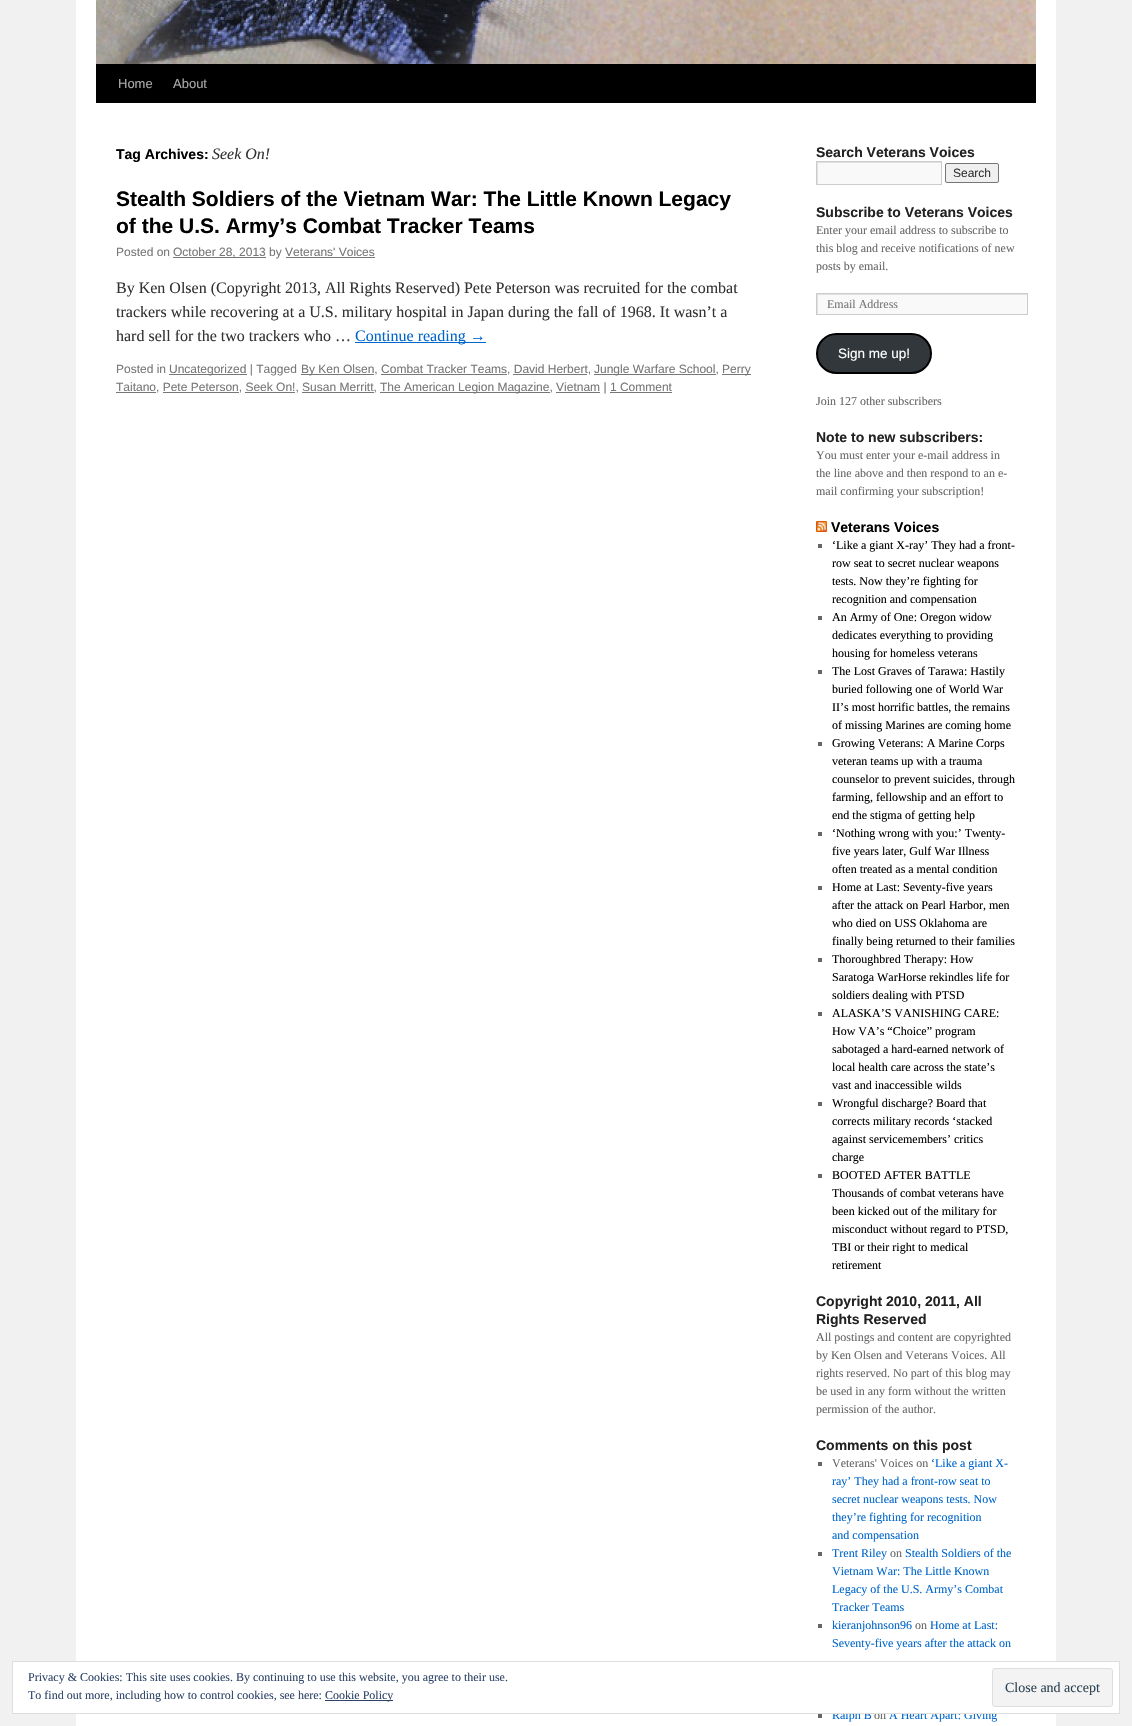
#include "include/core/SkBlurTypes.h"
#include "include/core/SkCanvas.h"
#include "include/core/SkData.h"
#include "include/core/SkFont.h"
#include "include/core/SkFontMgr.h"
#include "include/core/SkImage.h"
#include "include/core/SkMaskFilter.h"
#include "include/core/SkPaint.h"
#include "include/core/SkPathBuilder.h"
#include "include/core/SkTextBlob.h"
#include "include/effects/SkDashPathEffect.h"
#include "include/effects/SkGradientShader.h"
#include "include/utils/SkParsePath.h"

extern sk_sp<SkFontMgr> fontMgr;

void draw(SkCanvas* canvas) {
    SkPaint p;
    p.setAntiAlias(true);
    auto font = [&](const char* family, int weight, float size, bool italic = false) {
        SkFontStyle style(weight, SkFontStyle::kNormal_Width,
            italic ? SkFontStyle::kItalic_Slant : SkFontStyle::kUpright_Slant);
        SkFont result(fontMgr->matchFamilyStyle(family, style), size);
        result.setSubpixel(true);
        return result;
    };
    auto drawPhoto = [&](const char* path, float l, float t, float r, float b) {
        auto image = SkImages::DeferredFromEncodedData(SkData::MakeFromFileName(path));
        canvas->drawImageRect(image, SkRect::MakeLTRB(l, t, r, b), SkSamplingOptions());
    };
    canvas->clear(0xFFF1F1F1);
    p.setColor(0xFFFFFFFF);
    canvas->drawRect(SkRect::MakeLTRB(76, 0, 1056, 1726), p);
    p.setColor(0xFF000000);
    canvas->drawRect(SkRect::MakeLTRB(96, 64, 1036, 103), p);
    drawPhoto("media/1.png", 96, 0, 1036, 64);
    auto font1 = font("Liberation Sans", 400, 13);
    p.setColor(0xFFAAAAAA);
    canvas->drawString("Home", 118, 88, font1, p);
    canvas->drawString("About", 173, 88, font1, p);
    auto font2 = font("Liberation Sans", 700, 14);
    p.setColor(0xFF000000);
    canvas->drawString("Tag Archives:", 116, 159, font2, p);
    auto font3 = font("Liberation Serif", 400, 16, true);
    p.setColor(0xFF333333);
    canvas->drawString("Seek On!", 212, 159, font3, p);
    auto font4 = font("Liberation Sans", 700, 21);
    p.setColor(0xFF000000);
    canvas->drawString("Stealth Soldiers of the Vietnam War: The Little Known Legacy", 116, 206, font4, p);
    canvas->drawString("of the U.S. Army’s Combat Tracker Teams", 116, 233, font4, p);
    auto font5 = font("Liberation Sans", 400, 12);
    p.setColor(0xFF777777);
    canvas->drawString("Posted on", 116, 256, font5, p);
    canvas->drawRect(SkRect::MakeLTRB(173, 257, 266, 258), p);
    canvas->drawString("October 28, 2013 by Veterans' Voices", 173, 256, font5, p);
    canvas->drawRect(SkRect::MakeLTRB(286, 257, 375, 258), p);
    auto font6 = font("Liberation Serif", 400, 16);
    p.setColor(0xFF333333);
    {
        const struct { const char* s; float x, y; } items[] = {
            {"By Ken Olsen (Copyright 2013, All Rights Reserved) Pete Peterson was recruited for the combat", 116, 293},
            {"trackers while recovering at a U.S. military hospital in Japan during the fall of 1968. It wasn’t a", 116, 317},
            {"hard sell for the two trackers who …", 116, 341},
        };
        for (auto [s, x, y] : items) {
            canvas->drawString(s, x, y, font6, p);
        }
    }
    p.setColor(0xFF0066CC);
    canvas->drawRect(SkRect::MakeLTRB(355, 342, 486, 343), p);
    canvas->drawString("Continue reading →", 355, 341, font6, p);
    p.setColor(0xFF777777);
    canvas->drawString("Posted in", 116, 373, font5, p);
    canvas->drawRect(SkRect::MakeLTRB(169, 374, 247, 375), p);
    canvas->drawString("Uncategorized | Tagged", 169, 373, font5, p);
    canvas->drawRect(SkRect::MakeLTRB(301, 374, 374, 375), p);
    canvas->drawString("By Ken Olsen, Combat Tracker Teams, David Herbert,", 301, 373, font5, p);
    {
        const struct { float l, t, r, b; SkColor color; } items[] = {
            {381, 374, 507, 375, 0xFF777777},
            {513, 374, 587, 375, 0xFF777777},
            {594, 374, 716, 375, 0xFF777777},
        };
        for (auto [l, t, r, b, color] : items) {
            p.setColor(color);
            canvas->drawRect(SkRect::MakeLTRB(l, t, r, b), p);
        }
    }
    canvas->drawString("Jungle Warfare School,", 594, 373, font5, p);
    canvas->drawRect(SkRect::MakeLTRB(722, 374, 751, 375), p);
    canvas->drawString("Perry", 722, 373, font5, p);
    canvas->drawRect(SkRect::MakeLTRB(116, 392, 156, 393), p);
    canvas->drawString("Taitano, Pete Peterson, Seek On!, Susan Merritt,", 116, 391, font5, p);
    {
        const struct { float l, t, r, b; SkColor color; } items[] = {
            {163, 392, 239, 393, 0xFF777777},
            {245, 392, 295, 393, 0xFF777777},
            {302, 392, 374, 393, 0xFF777777},
            {380, 392, 550, 393, 0xFF777777},
        };
        for (auto [l, t, r, b, color] : items) {
            p.setColor(color);
            canvas->drawRect(SkRect::MakeLTRB(l, t, r, b), p);
        }
    }
    canvas->drawString("The American Legion Magazine, Vietnam | 1 Comment", 380, 391, font5, p);
    canvas->drawRect(SkRect::MakeLTRB(556, 392, 600, 393), p);
    canvas->drawRect(SkRect::MakeLTRB(610, 392, 672, 393), p);
    p.setColor(0xFF222222);
    canvas->drawString("Search Veterans Voices", 816, 157, font2, p);
    p.setColor(0xFFF9F9F9);
    canvas->drawRect(SkRect::MakeLTRB(818, 163, 941, 184), p);
    canvas->save();
    canvas->clipRect(SkRect::MakeLTRB(817, 162, 941, 184));
    p.setColor(0xFFE0E0E0);
    canvas->drawPath(SkPathBuilder(SkPathFillType::kEvenOdd).moveTo(718, 63).lineTo(1040, 63).lineTo(1040, 283).lineTo(718, 283).close().moveTo(818, 163).lineTo(942, 163).lineTo(942, 185).lineTo(818, 185).close().detach(), p);
    canvas->restore();
    p.setStyle(SkPaint::kStroke_Style);
    p.setStrokeWidth(1);
    p.setColor(0xFFCCCCCC);
    canvas->drawRect(SkRect::MakeLTRB(816.5f, 161.5f, 941.5f, 184.5f), p);
    p.setStyle(SkPaint::kFill_Style);
    p.setColor(0xFFEFEFEF);
    canvas->drawRoundRect(SkRect::MakeLTRB(945.5f, 163.5f, 998.5f, 182.5f), 1.5f, 1.5f, p);
    p.setStyle(SkPaint::kStroke_Style);
    p.setColor(0xFF767676);
    canvas->drawRoundRect(SkRect::MakeLTRB(945.5f, 163.5f, 998.5f, 182.5f), 1.5f, 1.5f, p);
    p.setStyle(SkPaint::kFill_Style);
    p.setColor(0xFF333333);
    canvas->drawString("Search", 953, 177, font5, p);
    p.setColor(0xFF222222);
    canvas->drawString("Subscribe to Veterans Voices", 816, 217, font2, p);
    auto font7 = font("Liberation Serif", 400, 12);
    p.setColor(0xFF666666);
    {
        const struct { const char* s; float x, y; } items[] = {
            {"Enter your email address to subscribe to", 816, 234},
            {"this blog and receive notifications of new", 816, 252},
            {"posts by email.", 816, 270},
        };
        for (auto [s, x, y] : items) {
            canvas->drawString(s, x, y, font7, p);
        }
    }
    p.setColor(0xFFF9F9F9);
    canvas->drawRect(SkRect::MakeLTRB(818, 295, 1027, 314), p);
    canvas->save();
    canvas->clipRect(SkRect::MakeLTRB(817, 294, 1027, 314));
    p.setColor(0xFFE0E0E0);
    canvas->drawPath(SkPathBuilder(SkPathFillType::kEvenOdd).moveTo(718, 195).lineTo(1126, 195).lineTo(1126, 413).lineTo(718, 413).close().moveTo(818, 295).lineTo(1028, 295).lineTo(1028, 315).lineTo(818, 315).close().detach(), p);
    canvas->restore();
    p.setStyle(SkPaint::kStroke_Style);
    p.setColor(0xFFCCCCCC);
    canvas->drawRect(SkRect::MakeLTRB(816.5f, 293.5f, 1027.5f, 314.5f), p);
    p.setStyle(SkPaint::kFill_Style);
    p.setColor(0xFF777777);
    canvas->drawString("Email Address", 827, 308, font7, p);
    p.setColor(0xFF32373C);
    canvas->drawRoundRect(SkRect::MakeLTRB(817, 334, 931, 373), 19.5f, 19.5f, p);
    p.setStyle(SkPaint::kStroke_Style);
    p.setStrokeWidth(2);
    p.setColor(0xFF000000);
    canvas->drawRoundRect(SkRect::MakeLTRB(817, 334, 931, 373), 19.5f, 19.5f, p);
    auto font8 = font("Liberation Sans", 400, 13.5f);
    p.setStyle(SkPaint::kFill_Style);
    p.setColor(0xFFFFFFFF);
    canvas->drawString("Sign me up!", 838, 358, font8, p);
    p.setColor(0xFF666666);
    canvas->drawString("Join 127 other subscribers", 816, 405, font7, p);
    p.setColor(0xFF222222);
    canvas->drawString("Note to new subscribers:", 816, 442, font2, p);
    p.setColor(0xFF666666);
    {
        const struct { const char* s; float x, y; } items[] = {
            {"You must enter your e-mail address in", 816, 459},
            {"the line above and then respond to an e-", 816, 477},
            {"mail confirming your subscription!", 816, 495},
        };
        for (auto [s, x, y] : items) {
            canvas->drawString(s, x, y, font7, p);
        }
    }
    p.setColor(0xFFFFA500);
    canvas->drawRect(SkRect::MakeLTRB(816, 521, 827, 532), p);
    drawPhoto("media/2.png", 816, 521, 827, 532);
    p.setColor(0xFF000000);
    canvas->drawString("Veterans Voices", 831, 532, font2, p);
    p.setColor(0xFF666666);
    canvas->drawRect(SkRect::MakeLTRB(818, 544, 822, 548), p);
    p.setColor(0xFF000000);
    {
        const struct { const char* s; float x, y; } items[] = {
            {"‘Like a giant X-ray’ They had a front-", 832, 549},
            {"row seat to secret nuclear weapons", 832, 567},
            {"tests. Now they’re fighting for", 832, 585},
            {"recognition and compensation", 832, 603},
        };
        for (auto [s, x, y] : items) {
            canvas->drawString(s, x, y, font7, p);
        }
    }
    p.setColor(0xFF666666);
    canvas->drawRect(SkRect::MakeLTRB(818, 616, 822, 620), p);
    p.setColor(0xFF000000);
    {
        const struct { const char* s; float x, y; } items[] = {
            {"An Army of One: Oregon widow", 832, 621},
            {"dedicates everything to providing", 832, 639},
            {"housing for homeless veterans", 832, 657},
        };
        for (auto [s, x, y] : items) {
            canvas->drawString(s, x, y, font7, p);
        }
    }
    p.setColor(0xFF666666);
    canvas->drawRect(SkRect::MakeLTRB(818, 670, 822, 674), p);
    p.setColor(0xFF000000);
    {
        const struct { const char* s; float x, y; } items[] = {
            {"The Lost Graves of Tarawa: Hastily", 832, 675},
            {"buried following one of World War", 832, 693},
            {"II’s most horrific battles, the remains", 832, 711},
            {"of missing Marines are coming home", 832, 729},
        };
        for (auto [s, x, y] : items) {
            canvas->drawString(s, x, y, font7, p);
        }
    }
    p.setColor(0xFF666666);
    canvas->drawRect(SkRect::MakeLTRB(818, 742, 822, 746), p);
    p.setColor(0xFF000000);
    {
        const struct { const char* s; float x, y; } items[] = {
            {"Growing Veterans: A Marine Corps", 832, 747},
            {"veteran teams up with a trauma", 832, 765},
            {"counselor to prevent suicides, through", 832, 783},
            {"farming, fellowship and an effort to", 832, 801},
            {"end the stigma of getting help", 832, 819},
        };
        for (auto [s, x, y] : items) {
            canvas->drawString(s, x, y, font7, p);
        }
    }
    p.setColor(0xFF666666);
    canvas->drawRect(SkRect::MakeLTRB(818, 832, 822, 836), p);
    p.setColor(0xFF000000);
    {
        const struct { const char* s; float x, y; } items[] = {
            {"‘Nothing wrong with you:’ Twenty-", 832, 837},
            {"five years later, Gulf War Illness", 832, 855},
            {"often treated as a mental condition", 832, 873},
        };
        for (auto [s, x, y] : items) {
            canvas->drawString(s, x, y, font7, p);
        }
    }
    p.setColor(0xFF666666);
    canvas->drawRect(SkRect::MakeLTRB(818, 886, 822, 890), p);
    p.setColor(0xFF000000);
    {
        const struct { const char* s; float x, y; } items[] = {
            {"Home at Last: Seventy-five years", 832, 891},
            {"after the attack on Pearl Harbor, men", 832, 909},
            {"who died on USS Oklahoma are", 832, 927},
            {"finally being returned to their families", 832, 945},
        };
        for (auto [s, x, y] : items) {
            canvas->drawString(s, x, y, font7, p);
        }
    }
    p.setColor(0xFF666666);
    canvas->drawRect(SkRect::MakeLTRB(818, 958, 822, 962), p);
    p.setColor(0xFF000000);
    {
        const struct { const char* s; float x, y; } items[] = {
            {"Thoroughbred Therapy: How", 832, 963},
            {"Saratoga WarHorse rekindles life for", 832, 981},
            {"soldiers dealing with PTSD", 832, 999},
        };
        for (auto [s, x, y] : items) {
            canvas->drawString(s, x, y, font7, p);
        }
    }
    p.setColor(0xFF666666);
    canvas->drawRect(SkRect::MakeLTRB(818, 1012, 822, 1016), p);
    p.setColor(0xFF000000);
    {
        const struct { const char* s; float x, y; } items[] = {
            {"ALASKA’S VANISHING CARE:", 832, 1017},
            {"How VA’s “Choice” program", 832, 1035},
            {"sabotaged a hard-earned network of", 832, 1053},
            {"local health care across the state’s", 832, 1071},
            {"vast and inaccessible wilds", 832, 1089},
        };
        for (auto [s, x, y] : items) {
            canvas->drawString(s, x, y, font7, p);
        }
    }
    p.setColor(0xFF666666);
    canvas->drawRect(SkRect::MakeLTRB(818, 1102, 822, 1106), p);
    p.setColor(0xFF000000);
    {
        const struct { const char* s; float x, y; } items[] = {
            {"Wrongful discharge? Board that", 832, 1107},
            {"corrects military records ‘stacked", 832, 1125},
            {"against servicemembers’ critics", 832, 1143},
            {"charge", 832, 1161},
        };
        for (auto [s, x, y] : items) {
            canvas->drawString(s, x, y, font7, p);
        }
    }
    p.setColor(0xFF666666);
    canvas->drawRect(SkRect::MakeLTRB(818, 1174, 822, 1178), p);
    p.setColor(0xFF000000);
    {
        const struct { const char* s; float x, y; } items[] = {
            {"BOOTED AFTER BATTLE", 832, 1179},
            {"Thousands of combat veterans have", 832, 1197},
            {"been kicked out of the military for", 832, 1215},
            {"misconduct without regard to PTSD,", 832, 1233},
            {"TBI or their right to medical", 832, 1251},
            {"retirement", 832, 1269},
        };
        for (auto [s, x, y] : items) {
            canvas->drawString(s, x, y, font7, p);
        }
    }
    p.setColor(0xFF222222);
    canvas->drawString("Copyright 2010, 2011, All", 816, 1306, font2, p);
    canvas->drawString("Rights Reserved", 816, 1324, font2, p);
    p.setColor(0xFF666666);
    {
        const struct { const char* s; float x, y; } items[] = {
            {"All postings and content are copyrighted", 816, 1341},
            {"by Ken Olsen and Veterans Voices. All", 816, 1359},
            {"rights reserved. No part of this blog may", 816, 1377},
            {"be used in any form without the written", 816, 1395},
            {"permission of the author.", 816, 1413},
        };
        for (auto [s, x, y] : items) {
            canvas->drawString(s, x, y, font7, p);
        }
    }
    p.setColor(0xFF222222);
    canvas->drawString("Comments on this post", 816, 1450, font2, p);
    p.setColor(0xFF666666);
    canvas->drawRect(SkRect::MakeLTRB(818, 1462, 822, 1466), p);
    canvas->drawString("Veterans' Voices on", 832, 1467, font7, p);
    p.setColor(0xFF0066CC);
    {
        const struct { const char* s; float x, y; } items[] = {
            {"‘Like a giant X-", 931, 1467},
            {"ray’ They had a front-row seat to", 832, 1485},
            {"secret nuclear weapons tests. Now", 832, 1503},
            {"they’re fighting for recognition", 832, 1521},
            {"and compensation", 832, 1539},
        };
        for (auto [s, x, y] : items) {
            canvas->drawString(s, x, y, font7, p);
        }
    }
    p.setColor(0xFF666666);
    canvas->drawRect(SkRect::MakeLTRB(818, 1552, 822, 1556), p);
    p.setColor(0xFF0066CC);
    canvas->drawString("Trent Riley", 832, 1557, font7, p);
    p.setColor(0xFF666666);
    canvas->drawString("on", 890, 1557, font7, p);
    p.setColor(0xFF0066CC);
    {
        const struct { const char* s; float x, y; } items[] = {
            {"Stealth Soldiers of the", 905, 1557},
            {"Vietnam War: The Little Known", 832, 1575},
            {"Legacy of the U.S. Army’s Combat", 832, 1593},
            {"Tracker Teams", 832, 1611},
        };
        for (auto [s, x, y] : items) {
            canvas->drawString(s, x, y, font7, p);
        }
    }
    p.setColor(0xFF666666);
    canvas->drawRect(SkRect::MakeLTRB(818, 1624, 822, 1628), p);
    p.setColor(0xFF0066CC);
    canvas->drawString("kieranjohnson96", 832, 1629, font7, p);
    p.setColor(0xFF666666);
    canvas->drawString("on", 915, 1629, font7, p);
    p.setColor(0xFF0066CC);
    canvas->drawString("Home at Last:", 930, 1629, font7, p);
    canvas->drawString("Seventy-five years after the attack on", 832, 1647, font7, p);
    p.setColor(0xFF666666);
    canvas->drawRect(SkRect::MakeLTRB(818, 1714, 822, 1718), p);
    p.setColor(0xFF0066CC);
    canvas->drawString("Ralph B", 832, 1719, font7, p);
    p.setColor(0xFF666666);
    canvas->drawString("on", 874, 1719, font7, p);
    p.setColor(0xFF0066CC);
    canvas->drawString("A Heart Apart: Giving", 889, 1719, font7, p);
    p.setColor(0xFFFFFFFF);
    canvas->drawRect(SkRect::MakeLTRB(12.5f, 1661.5f, 1119.5f, 1713.5f), p);
    p.setStyle(SkPaint::kStroke_Style);
    p.setStrokeWidth(1);
    p.setColor(0xFFDEDEDE);
    canvas->drawRect(SkRect::MakeLTRB(12.5f, 1661.5f, 1119.5f, 1713.5f), p);
    p.setStyle(SkPaint::kFill_Style);
    p.setColor(0xFF2E4467);
    canvas->drawString("Privacy & Cookies: This site uses cookies. By continuing to use this website, you agree to their use.", 28, 1681, font7, p);
    canvas->drawString("To find out more, including how to control cookies, see here:", 28, 1699, font7, p);
    canvas->drawRect(SkRect::MakeLTRB(325, 1700, 393, 1701), p);
    canvas->drawString("Cookie Policy", 325, 1699, font7, p);
    p.setColor(0xFFF3F3F3);
    canvas->drawRoundRect(SkRect::MakeLTRB(992.5f, 1668.5f, 1112.5f, 1706.5f), 2.5f, 2.5f, p);
    p.setStyle(SkPaint::kStroke_Style);
    p.setColor(0xFFDEDEDE);
    canvas->drawRoundRect(SkRect::MakeLTRB(992.5f, 1668.5f, 1112.5f, 1706.5f), 2.5f, 2.5f, p);
    auto font9 = font("Liberation Serif", 400, 14);
    p.setStyle(SkPaint::kFill_Style);
    p.setColor(0xFF2E4453);
    canvas->drawString("Close and accept", 1005, 1692, font9, p);
}
